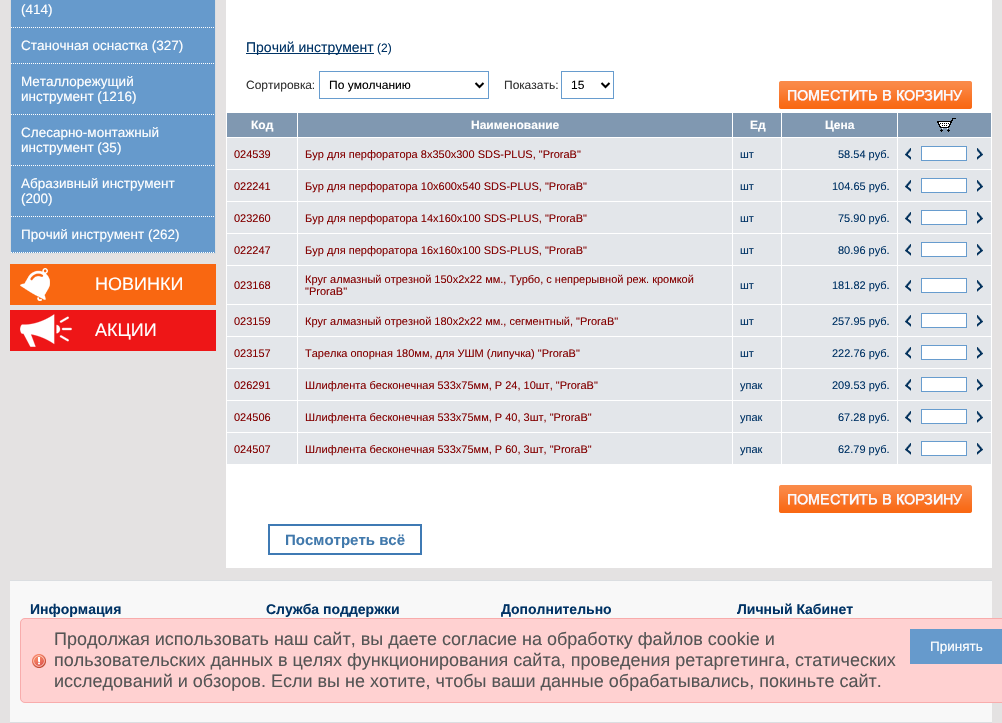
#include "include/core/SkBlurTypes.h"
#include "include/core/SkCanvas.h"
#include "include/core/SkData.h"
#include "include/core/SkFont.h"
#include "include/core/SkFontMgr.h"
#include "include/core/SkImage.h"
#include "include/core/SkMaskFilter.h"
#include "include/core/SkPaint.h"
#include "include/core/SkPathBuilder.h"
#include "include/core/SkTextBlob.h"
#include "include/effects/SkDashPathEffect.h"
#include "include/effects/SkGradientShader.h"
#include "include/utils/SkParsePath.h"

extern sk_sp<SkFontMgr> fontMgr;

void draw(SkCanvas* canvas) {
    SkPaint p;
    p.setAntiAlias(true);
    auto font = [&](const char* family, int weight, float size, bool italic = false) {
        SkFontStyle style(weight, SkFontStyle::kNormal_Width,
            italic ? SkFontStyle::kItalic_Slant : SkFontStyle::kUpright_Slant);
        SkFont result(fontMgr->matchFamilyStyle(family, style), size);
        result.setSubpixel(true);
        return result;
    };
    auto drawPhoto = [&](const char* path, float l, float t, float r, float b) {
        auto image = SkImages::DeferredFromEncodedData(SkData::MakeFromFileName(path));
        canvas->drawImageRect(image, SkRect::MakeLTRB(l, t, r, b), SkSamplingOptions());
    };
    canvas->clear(0xFFE4E2E2);
    {
        const struct { float l, t, r, b; SkColor color; } items[] = {
            {11, 0, 215, 253, 0xFF669ACC},
            {215, 0, 216, 254, 0xFFDBDEE1},
            {10, 253, 216, 254, 0xFFDBDEE1},
            {10, 0, 11, 254, 0xFFDBDEE1},
        };
        for (auto [l, t, r, b, color] : items) {
            p.setColor(color);
            canvas->drawRect(SkRect::MakeLTRB(l, t, r, b), p);
        }
    }
    p.setStyle(SkPaint::kStroke_Style);
    p.setStrokeWidth(1);
    p.setColor(0xFFFFFFFF);
    p.setPathEffect(SkDashPathEffect::Make({{1, 1}}, 0));
    canvas->drawPath(SkPathBuilder().moveTo(11, 27.5f).lineTo(215, 27.5f).detach(), p);
    p.setPathEffect(nullptr);
    auto font1 = font("Liberation Sans", 400, 13.5f);
    p.setStyle(SkPaint::kFill_Style);
    canvas->drawString("(414)", 21, 14, font1, p);
    p.setStyle(SkPaint::kStroke_Style);
    p.setPathEffect(SkDashPathEffect::Make({{1, 1}}, 0));
    canvas->drawPath(SkPathBuilder().moveTo(11, 63.5f).lineTo(215, 63.5f).detach(), p);
    p.setPathEffect(nullptr);
    p.setStyle(SkPaint::kFill_Style);
    canvas->drawString("Станочная оснастка (327)", 21, 50, font1, p);
    p.setStyle(SkPaint::kStroke_Style);
    p.setPathEffect(SkDashPathEffect::Make({{1, 1}}, 0));
    canvas->drawPath(SkPathBuilder().moveTo(11, 114.5f).lineTo(215, 114.5f).detach(), p);
    p.setPathEffect(nullptr);
    p.setStyle(SkPaint::kFill_Style);
    canvas->drawString("Металлорежущий", 21, 86, font1, p);
    canvas->drawString("инструмент (1216)", 21, 101, font1, p);
    p.setStyle(SkPaint::kStroke_Style);
    p.setPathEffect(SkDashPathEffect::Make({{1, 1}}, 0));
    canvas->drawPath(SkPathBuilder().moveTo(11, 165.5f).lineTo(215, 165.5f).detach(), p);
    p.setPathEffect(nullptr);
    p.setStyle(SkPaint::kFill_Style);
    canvas->drawString("Слесарно-монтажный", 21, 137, font1, p);
    canvas->drawString("инструмент (35)", 21, 152, font1, p);
    p.setStyle(SkPaint::kStroke_Style);
    p.setPathEffect(SkDashPathEffect::Make({{1, 1}}, 0));
    canvas->drawPath(SkPathBuilder().moveTo(11, 216.5f).lineTo(215, 216.5f).detach(), p);
    p.setPathEffect(nullptr);
    p.setStyle(SkPaint::kFill_Style);
    canvas->drawString("Абразивный инструмент", 21, 188, font1, p);
    canvas->drawString("(200)", 21, 203, font1, p);
    p.setStyle(SkPaint::kStroke_Style);
    p.setPathEffect(SkDashPathEffect::Make({{1, 1}}, 0));
    canvas->drawPath(SkPathBuilder().moveTo(11, 252.5f).lineTo(215, 252.5f).detach(), p);
    p.setPathEffect(nullptr);
    p.setStyle(SkPaint::kFill_Style);
    canvas->drawString("Прочий инструмент (262)", 21, 239, font1, p);
    p.setColor(0xFFF96711);
    canvas->drawRect(SkRect::MakeLTRB(10, 264, 216, 305), p);
    drawPhoto("media/1.png", 20, 268, 50, 301);
    auto font2 = font("Liberation Sans", 400, 18);
    p.setColor(0xFFFFFFFF);
    canvas->drawString("НОВИНКИ", 95, 290, font2, p);
    p.setColor(0xFFEE1617);
    canvas->drawRect(SkRect::MakeLTRB(10, 310, 216, 351), p);
    drawPhoto("media/2.png", 20, 314, 72, 347);
    p.setColor(0xFFFFFFFF);
    canvas->drawString("АКЦИИ", 95, 336, font2, p);
    canvas->drawRect(SkRect::MakeLTRB(226, 0, 992, 568), p);
    p.setColor(0xFF003365);
    canvas->drawRect(SkRect::MakeLTRB(246, 53, 374, 54), p);
    auto font3 = font("Liberation Sans", 400, 14);
    canvas->drawString("Прочий инструмент", 246, 52, font3, p);
    auto font4 = font("Liberation Sans", 400, 12);
    canvas->drawString("(2)", 377, 52, font4, p);
    p.setColor(0xFF333333);
    canvas->drawString("Сортировка:", 246, 89, font4, p);
    p.setStyle(SkPaint::kStroke_Style);
    p.setColor(0xFF679CCE);
    canvas->drawRect(SkRect::MakeLTRB(319.5f, 71.5f, 488.5f, 98.5f), p);
    p.setStrokeWidth(2);
    p.setColor(0xFF000000);
    canvas->drawPath(SkPathBuilder().moveTo(475.5f, 83).lineTo(479.5f, 87).lineTo(483.5f, 83).detach(), p);
    p.setStyle(SkPaint::kFill_Style);
    canvas->drawString("По умолчанию", 329, 89, font4, p);
    p.setColor(0xFF333333);
    canvas->drawString("Показать:", 504, 89, font4, p);
    p.setStyle(SkPaint::kStroke_Style);
    p.setStrokeWidth(1);
    p.setColor(0xFF679CCE);
    canvas->drawRect(SkRect::MakeLTRB(561.5f, 71.5f, 613.5f, 98.5f), p);
    p.setStrokeWidth(2);
    p.setColor(0xFF000000);
    canvas->drawPath(SkPathBuilder().moveTo(601.5f, 83).lineTo(605.5f, 87).lineTo(609.5f, 83).detach(), p);
    p.setStyle(SkPaint::kFill_Style);
    canvas->drawString("15", 571, 89, font4, p);
    drawPhoto("media/3.png", 779, 81, 972, 109);
    p.setColor(0xFF8098B1);
    canvas->drawRect(SkRect::MakeLTRB(227, 113, 297, 137), p);
    auto font5 = font("Liberation Sans", 700, 12);
    p.setColor(0xFFFFFFFF);
    canvas->drawString("Код", 251, 129, font5, p);
    p.setColor(0xFF8098B1);
    canvas->drawRect(SkRect::MakeLTRB(298, 113, 732, 137), p);
    p.setColor(0xFFFFFFFF);
    canvas->drawString("Наименование", 471, 129, font5, p);
    p.setColor(0xFF8098B1);
    canvas->drawRect(SkRect::MakeLTRB(733, 113, 781, 137), p);
    p.setColor(0xFFFFFFFF);
    canvas->drawString("Ед", 750, 129, font5, p);
    p.setColor(0xFF8098B1);
    canvas->drawRect(SkRect::MakeLTRB(782, 113, 897, 137), p);
    p.setColor(0xFFFFFFFF);
    canvas->drawString("Цена", 825, 129, font5, p);
    p.setColor(0xFF8098B1);
    canvas->drawRect(SkRect::MakeLTRB(898, 113, 991, 137), p);
    drawPhoto("media/4.png", 937, 118, 956, 132);
    p.setColor(0xFFE3E6EA);
    canvas->drawRect(SkRect::MakeLTRB(227, 138, 297, 169), p);
    auto font6 = font("Liberation Sans", 400, 11);
    p.setColor(0xFF830000);
    canvas->drawString("024539", 234, 158, font6, p);
    p.setColor(0xFFE3E6EA);
    canvas->drawRect(SkRect::MakeLTRB(298, 138, 732, 169), p);
    p.setColor(0xFF830000);
    canvas->drawString("Бур для перфоратора 8x350x300 SDS-PLUS, \"ProraB\"", 305, 158, font6, p);
    p.setColor(0xFFE3E6EA);
    canvas->drawRect(SkRect::MakeLTRB(733, 138, 781, 169), p);
    p.setColor(0xFF003365);
    canvas->drawString("шт", 740, 158, font6, p);
    p.setColor(0xFFE3E6EA);
    canvas->drawRect(SkRect::MakeLTRB(782, 138, 897, 169), p);
    p.setColor(0xFF003365);
    canvas->drawString("58.54 руб.", 838, 158, font6, p);
    p.setColor(0xFFE3E6EA);
    canvas->drawRect(SkRect::MakeLTRB(898, 138, 991, 169), p);
    drawPhoto("media/5.png", 905, 148, 911, 160);
    p.setColor(0xFFFFFFFF);
    canvas->drawRect(SkRect::MakeLTRB(921.5f, 146.5f, 966.5f, 160.5f), p);
    p.setStyle(SkPaint::kStroke_Style);
    p.setStrokeWidth(1);
    p.setColor(0xFF679CCE);
    canvas->drawRect(SkRect::MakeLTRB(921.5f, 146.5f, 966.5f, 160.5f), p);
    drawPhoto("media/6.png", 977, 148, 983, 160);
    p.setStyle(SkPaint::kFill_Style);
    p.setColor(0xFFE3E6EA);
    canvas->drawRect(SkRect::MakeLTRB(227, 170, 297, 201), p);
    p.setColor(0xFF830000);
    canvas->drawString("022241", 234, 190, font6, p);
    p.setColor(0xFFE3E6EA);
    canvas->drawRect(SkRect::MakeLTRB(298, 170, 732, 201), p);
    p.setColor(0xFF830000);
    canvas->drawString("Бур для перфоратора 10x600x540 SDS-PLUS, \"ProraB\"", 305, 190, font6, p);
    p.setColor(0xFFE3E6EA);
    canvas->drawRect(SkRect::MakeLTRB(733, 170, 781, 201), p);
    p.setColor(0xFF003365);
    canvas->drawString("шт", 740, 190, font6, p);
    p.setColor(0xFFE3E6EA);
    canvas->drawRect(SkRect::MakeLTRB(782, 170, 897, 201), p);
    p.setColor(0xFF003365);
    canvas->drawString("104.65 руб.", 832, 190, font6, p);
    p.setColor(0xFFE3E6EA);
    canvas->drawRect(SkRect::MakeLTRB(898, 170, 991, 201), p);
    drawPhoto("media/5.png", 905, 180, 911, 192);
    p.setColor(0xFFFFFFFF);
    canvas->drawRect(SkRect::MakeLTRB(921.5f, 178.5f, 966.5f, 192.5f), p);
    p.setStyle(SkPaint::kStroke_Style);
    p.setColor(0xFF679CCE);
    canvas->drawRect(SkRect::MakeLTRB(921.5f, 178.5f, 966.5f, 192.5f), p);
    drawPhoto("media/6.png", 977, 180, 983, 192);
    p.setStyle(SkPaint::kFill_Style);
    p.setColor(0xFFE3E6EA);
    canvas->drawRect(SkRect::MakeLTRB(227, 202, 297, 233), p);
    p.setColor(0xFF830000);
    canvas->drawString("023260", 234, 222, font6, p);
    p.setColor(0xFFE3E6EA);
    canvas->drawRect(SkRect::MakeLTRB(298, 202, 732, 233), p);
    p.setColor(0xFF830000);
    canvas->drawString("Бур для перфоратора 14x160x100 SDS-PLUS, \"ProraB\"", 305, 222, font6, p);
    p.setColor(0xFFE3E6EA);
    canvas->drawRect(SkRect::MakeLTRB(733, 202, 781, 233), p);
    p.setColor(0xFF003365);
    canvas->drawString("шт", 740, 222, font6, p);
    p.setColor(0xFFE3E6EA);
    canvas->drawRect(SkRect::MakeLTRB(782, 202, 897, 233), p);
    p.setColor(0xFF003365);
    canvas->drawString("75.90 руб.", 838, 222, font6, p);
    p.setColor(0xFFE3E6EA);
    canvas->drawRect(SkRect::MakeLTRB(898, 202, 991, 233), p);
    drawPhoto("media/5.png", 905, 212, 911, 224);
    p.setColor(0xFFFFFFFF);
    canvas->drawRect(SkRect::MakeLTRB(921.5f, 210.5f, 966.5f, 224.5f), p);
    p.setStyle(SkPaint::kStroke_Style);
    p.setColor(0xFF679CCE);
    canvas->drawRect(SkRect::MakeLTRB(921.5f, 210.5f, 966.5f, 224.5f), p);
    drawPhoto("media/6.png", 977, 212, 983, 224);
    p.setStyle(SkPaint::kFill_Style);
    p.setColor(0xFFE3E6EA);
    canvas->drawRect(SkRect::MakeLTRB(227, 234, 297, 265), p);
    p.setColor(0xFF830000);
    canvas->drawString("022247", 234, 254, font6, p);
    p.setColor(0xFFE3E6EA);
    canvas->drawRect(SkRect::MakeLTRB(298, 234, 732, 265), p);
    p.setColor(0xFF830000);
    canvas->drawString("Бур для перфоратора 16x160x100 SDS-PLUS, \"ProraB\"", 305, 254, font6, p);
    p.setColor(0xFFE3E6EA);
    canvas->drawRect(SkRect::MakeLTRB(733, 234, 781, 265), p);
    p.setColor(0xFF003365);
    canvas->drawString("шт", 740, 254, font6, p);
    p.setColor(0xFFE3E6EA);
    canvas->drawRect(SkRect::MakeLTRB(782, 234, 897, 265), p);
    p.setColor(0xFF003365);
    canvas->drawString("80.96 руб.", 838, 254, font6, p);
    p.setColor(0xFFE3E6EA);
    canvas->drawRect(SkRect::MakeLTRB(898, 234, 991, 265), p);
    drawPhoto("media/5.png", 905, 244, 911, 256);
    p.setColor(0xFFFFFFFF);
    canvas->drawRect(SkRect::MakeLTRB(921.5f, 242.5f, 966.5f, 256.5f), p);
    p.setStyle(SkPaint::kStroke_Style);
    p.setColor(0xFF679CCE);
    canvas->drawRect(SkRect::MakeLTRB(921.5f, 242.5f, 966.5f, 256.5f), p);
    drawPhoto("media/6.png", 977, 244, 983, 256);
    p.setStyle(SkPaint::kFill_Style);
    p.setColor(0xFFE3E6EA);
    canvas->drawRect(SkRect::MakeLTRB(227, 266, 297, 304), p);
    p.setColor(0xFF830000);
    canvas->drawString("023168", 234, 289, font6, p);
    p.setColor(0xFFE3E6EA);
    canvas->drawRect(SkRect::MakeLTRB(298, 266, 732, 304), p);
    p.setColor(0xFF830000);
    canvas->drawString("Круг алмазный отрезной 150х2х22 мм., Турбо, с непрерывной реж. кромкой", 305, 283, font6, p);
    canvas->drawString("\"ProraB\"", 305, 295, font6, p);
    p.setColor(0xFFE3E6EA);
    canvas->drawRect(SkRect::MakeLTRB(733, 266, 781, 304), p);
    p.setColor(0xFF003365);
    canvas->drawString("шт", 740, 289, font6, p);
    p.setColor(0xFFE3E6EA);
    canvas->drawRect(SkRect::MakeLTRB(782, 266, 897, 304), p);
    p.setColor(0xFF003365);
    canvas->drawString("181.82 руб.", 832, 289, font6, p);
    p.setColor(0xFFE3E6EA);
    canvas->drawRect(SkRect::MakeLTRB(898, 266, 991, 304), p);
    drawPhoto("media/5.png", 905, 280, 911, 292);
    p.setColor(0xFFFFFFFF);
    canvas->drawRect(SkRect::MakeLTRB(921.5f, 278.5f, 966.5f, 292.5f), p);
    p.setStyle(SkPaint::kStroke_Style);
    p.setColor(0xFF679CCE);
    canvas->drawRect(SkRect::MakeLTRB(921.5f, 278.5f, 966.5f, 292.5f), p);
    drawPhoto("media/6.png", 977, 280, 983, 292);
    p.setStyle(SkPaint::kFill_Style);
    p.setColor(0xFFE3E6EA);
    canvas->drawRect(SkRect::MakeLTRB(227, 305, 297, 336), p);
    p.setColor(0xFF830000);
    canvas->drawString("023159", 234, 325, font6, p);
    p.setColor(0xFFE3E6EA);
    canvas->drawRect(SkRect::MakeLTRB(298, 305, 732, 336), p);
    p.setColor(0xFF830000);
    canvas->drawString("Круг алмазный отрезной 180х2х22 мм., cегментный, \"ProraB\"", 305, 325, font6, p);
    p.setColor(0xFFE3E6EA);
    canvas->drawRect(SkRect::MakeLTRB(733, 305, 781, 336), p);
    p.setColor(0xFF003365);
    canvas->drawString("шт", 740, 325, font6, p);
    p.setColor(0xFFE3E6EA);
    canvas->drawRect(SkRect::MakeLTRB(782, 305, 897, 336), p);
    p.setColor(0xFF003365);
    canvas->drawString("257.95 руб.", 832, 325, font6, p);
    p.setColor(0xFFE3E6EA);
    canvas->drawRect(SkRect::MakeLTRB(898, 305, 991, 336), p);
    drawPhoto("media/5.png", 905, 315, 911, 327);
    p.setColor(0xFFFFFFFF);
    canvas->drawRect(SkRect::MakeLTRB(921.5f, 313.5f, 966.5f, 327.5f), p);
    p.setStyle(SkPaint::kStroke_Style);
    p.setColor(0xFF679CCE);
    canvas->drawRect(SkRect::MakeLTRB(921.5f, 313.5f, 966.5f, 327.5f), p);
    drawPhoto("media/6.png", 977, 315, 983, 327);
    p.setStyle(SkPaint::kFill_Style);
    p.setColor(0xFFE3E6EA);
    canvas->drawRect(SkRect::MakeLTRB(227, 337, 297, 368), p);
    p.setColor(0xFF830000);
    canvas->drawString("023157", 234, 357, font6, p);
    p.setColor(0xFFE3E6EA);
    canvas->drawRect(SkRect::MakeLTRB(298, 337, 732, 368), p);
    p.setColor(0xFF830000);
    canvas->drawString("Тарелка опорная 180мм, для УШМ (липучка) \"ProraB\"", 305, 357, font6, p);
    p.setColor(0xFFE3E6EA);
    canvas->drawRect(SkRect::MakeLTRB(733, 337, 781, 368), p);
    p.setColor(0xFF003365);
    canvas->drawString("шт", 740, 357, font6, p);
    p.setColor(0xFFE3E6EA);
    canvas->drawRect(SkRect::MakeLTRB(782, 337, 897, 368), p);
    p.setColor(0xFF003365);
    canvas->drawString("222.76 руб.", 832, 357, font6, p);
    p.setColor(0xFFE3E6EA);
    canvas->drawRect(SkRect::MakeLTRB(898, 337, 991, 368), p);
    drawPhoto("media/5.png", 905, 347, 911, 359);
    p.setColor(0xFFFFFFFF);
    canvas->drawRect(SkRect::MakeLTRB(921.5f, 345.5f, 966.5f, 359.5f), p);
    p.setStyle(SkPaint::kStroke_Style);
    p.setColor(0xFF679CCE);
    canvas->drawRect(SkRect::MakeLTRB(921.5f, 345.5f, 966.5f, 359.5f), p);
    drawPhoto("media/6.png", 977, 347, 983, 359);
    p.setStyle(SkPaint::kFill_Style);
    p.setColor(0xFFE3E6EA);
    canvas->drawRect(SkRect::MakeLTRB(227, 369, 297, 400), p);
    p.setColor(0xFF830000);
    canvas->drawString("026291", 234, 389, font6, p);
    p.setColor(0xFFE3E6EA);
    canvas->drawRect(SkRect::MakeLTRB(298, 369, 732, 400), p);
    p.setColor(0xFF830000);
    canvas->drawString("Шлифлента бесконечная 533х75мм, P 24, 10шт, \"ProraB\"", 305, 389, font6, p);
    p.setColor(0xFFE3E6EA);
    canvas->drawRect(SkRect::MakeLTRB(733, 369, 781, 400), p);
    p.setColor(0xFF003365);
    canvas->drawString("упак", 740, 389, font6, p);
    p.setColor(0xFFE3E6EA);
    canvas->drawRect(SkRect::MakeLTRB(782, 369, 897, 400), p);
    p.setColor(0xFF003365);
    canvas->drawString("209.53 руб.", 832, 389, font6, p);
    p.setColor(0xFFE3E6EA);
    canvas->drawRect(SkRect::MakeLTRB(898, 369, 991, 400), p);
    drawPhoto("media/5.png", 905, 379, 911, 391);
    p.setColor(0xFFFFFFFF);
    canvas->drawRect(SkRect::MakeLTRB(921.5f, 377.5f, 966.5f, 391.5f), p);
    p.setStyle(SkPaint::kStroke_Style);
    p.setColor(0xFF679CCE);
    canvas->drawRect(SkRect::MakeLTRB(921.5f, 377.5f, 966.5f, 391.5f), p);
    drawPhoto("media/6.png", 977, 379, 983, 391);
    p.setStyle(SkPaint::kFill_Style);
    p.setColor(0xFFE3E6EA);
    canvas->drawRect(SkRect::MakeLTRB(227, 401, 297, 432), p);
    p.setColor(0xFF830000);
    canvas->drawString("024506", 234, 421, font6, p);
    p.setColor(0xFFE3E6EA);
    canvas->drawRect(SkRect::MakeLTRB(298, 401, 732, 432), p);
    p.setColor(0xFF830000);
    canvas->drawString("Шлифлента бесконечная 533х75мм, P 40, 3шт, \"ProraB\"", 305, 421, font6, p);
    p.setColor(0xFFE3E6EA);
    canvas->drawRect(SkRect::MakeLTRB(733, 401, 781, 432), p);
    p.setColor(0xFF003365);
    canvas->drawString("упак", 740, 421, font6, p);
    p.setColor(0xFFE3E6EA);
    canvas->drawRect(SkRect::MakeLTRB(782, 401, 897, 432), p);
    p.setColor(0xFF003365);
    canvas->drawString("67.28 руб.", 838, 421, font6, p);
    p.setColor(0xFFE3E6EA);
    canvas->drawRect(SkRect::MakeLTRB(898, 401, 991, 432), p);
    drawPhoto("media/5.png", 905, 411, 911, 423);
    p.setColor(0xFFFFFFFF);
    canvas->drawRect(SkRect::MakeLTRB(921.5f, 409.5f, 966.5f, 423.5f), p);
    p.setStyle(SkPaint::kStroke_Style);
    p.setColor(0xFF679CCE);
    canvas->drawRect(SkRect::MakeLTRB(921.5f, 409.5f, 966.5f, 423.5f), p);
    drawPhoto("media/6.png", 977, 411, 983, 423);
    p.setStyle(SkPaint::kFill_Style);
    p.setColor(0xFFE3E6EA);
    canvas->drawRect(SkRect::MakeLTRB(227, 433, 297, 464), p);
    p.setColor(0xFF830000);
    canvas->drawString("024507", 234, 453, font6, p);
    p.setColor(0xFFE3E6EA);
    canvas->drawRect(SkRect::MakeLTRB(298, 433, 732, 464), p);
    p.setColor(0xFF830000);
    canvas->drawString("Шлифлента бесконечная 533х75мм, P 60, 3шт, \"ProraB\"", 305, 453, font6, p);
    p.setColor(0xFFE3E6EA);
    canvas->drawRect(SkRect::MakeLTRB(733, 433, 781, 464), p);
    p.setColor(0xFF003365);
    canvas->drawString("упак", 740, 453, font6, p);
    p.setColor(0xFFE3E6EA);
    canvas->drawRect(SkRect::MakeLTRB(782, 433, 897, 464), p);
    p.setColor(0xFF003365);
    canvas->drawString("62.79 руб.", 838, 453, font6, p);
    p.setColor(0xFFE3E6EA);
    canvas->drawRect(SkRect::MakeLTRB(898, 433, 991, 464), p);
    drawPhoto("media/5.png", 905, 443, 911, 455);
    p.setColor(0xFFFFFFFF);
    canvas->drawRect(SkRect::MakeLTRB(921.5f, 441.5f, 966.5f, 455.5f), p);
    p.setStyle(SkPaint::kStroke_Style);
    p.setColor(0xFF679CCE);
    canvas->drawRect(SkRect::MakeLTRB(921.5f, 441.5f, 966.5f, 455.5f), p);
    drawPhoto("media/6.png", 977, 443, 983, 455);
    drawPhoto("media/3.png", 779, 485, 972, 513);
    p.setStrokeWidth(2);
    p.setColor(0xFF3F7AB4);
    canvas->drawRect(SkRect::MakeLTRB(269, 525, 421, 554), p);
    auto font7 = font("Liberation Sans", 700, 15);
    p.setStyle(SkPaint::kFill_Style);
    p.setColor(0xFF4179AC);
    canvas->drawString("Посмотреть всё", 285, 545, font7, p);
    {
        const struct { float l, t, r, b; SkColor color; } items[] = {
            {10, 581, 992, 722, 0xFFF8F8F8},
            {10, 580, 992, 581, 0xFFDBDEE1},
            {10, 722, 992, 723, 0xFFDBDEE1},
        };
        for (auto [l, t, r, b, color] : items) {
            p.setColor(color);
            canvas->drawRect(SkRect::MakeLTRB(l, t, r, b), p);
        }
    }
    auto font8 = font("Liberation Sans", 700, 14);
    p.setColor(0xFF003365);
    {
        const struct { const char* s; float x, y; } items[] = {
            {"Информация", 30, 614},
            {"Служба поддержки", 266, 614},
            {"Дополнительно", 501, 614},
            {"Личный Кабинет", 737, 614},
        };
        for (auto [s, x, y] : items) {
            canvas->drawString(s, x, y, font8, p);
        }
    }
    p.setColor(0xFFFFD1D1);
    canvas->drawRoundRect(SkRect::MakeLTRB(20, 618, 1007, 703), 5, 5, p);
    drawPhoto("media/7.png", 32, 654, 46, 668);
    p.setStyle(SkPaint::kStroke_Style);
    p.setStrokeWidth(1);
    p.setColor(0xFFF8ACAC);
    canvas->drawRoundRect(SkRect::MakeLTRB(20.5f, 618.5f, 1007.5f, 702.5f), 4.5f, 4.5f, p);
    p.setStyle(SkPaint::kFill_Style);
    p.setColor(0xFF555555);
    {
        const struct { const char* s; float x, y; } items[] = {
            {"Продолжая использовать наш сайт, вы даете согласие на обработку файлов cookie и", 54, 645},
            {"пользовательских данных в целях функционирования сайта, проведения ретаргетинга, статических", 54, 666},
            {"исследований и обзоров. Если вы не хотите, чтобы ваши данные обрабатывались, покиньте сайт.", 54, 687},
        };
        for (auto [s, x, y] : items) {
            canvas->drawString(s, x, y, font2, p);
        }
    }
    p.setColor(0xFF669ACC);
    canvas->drawRect(SkRect::MakeLTRB(910, 629, 1002, 664), p);
    p.setColor(0xFFFFFFFF);
    canvas->drawString("Принять", 930, 651, font1, p);
}
